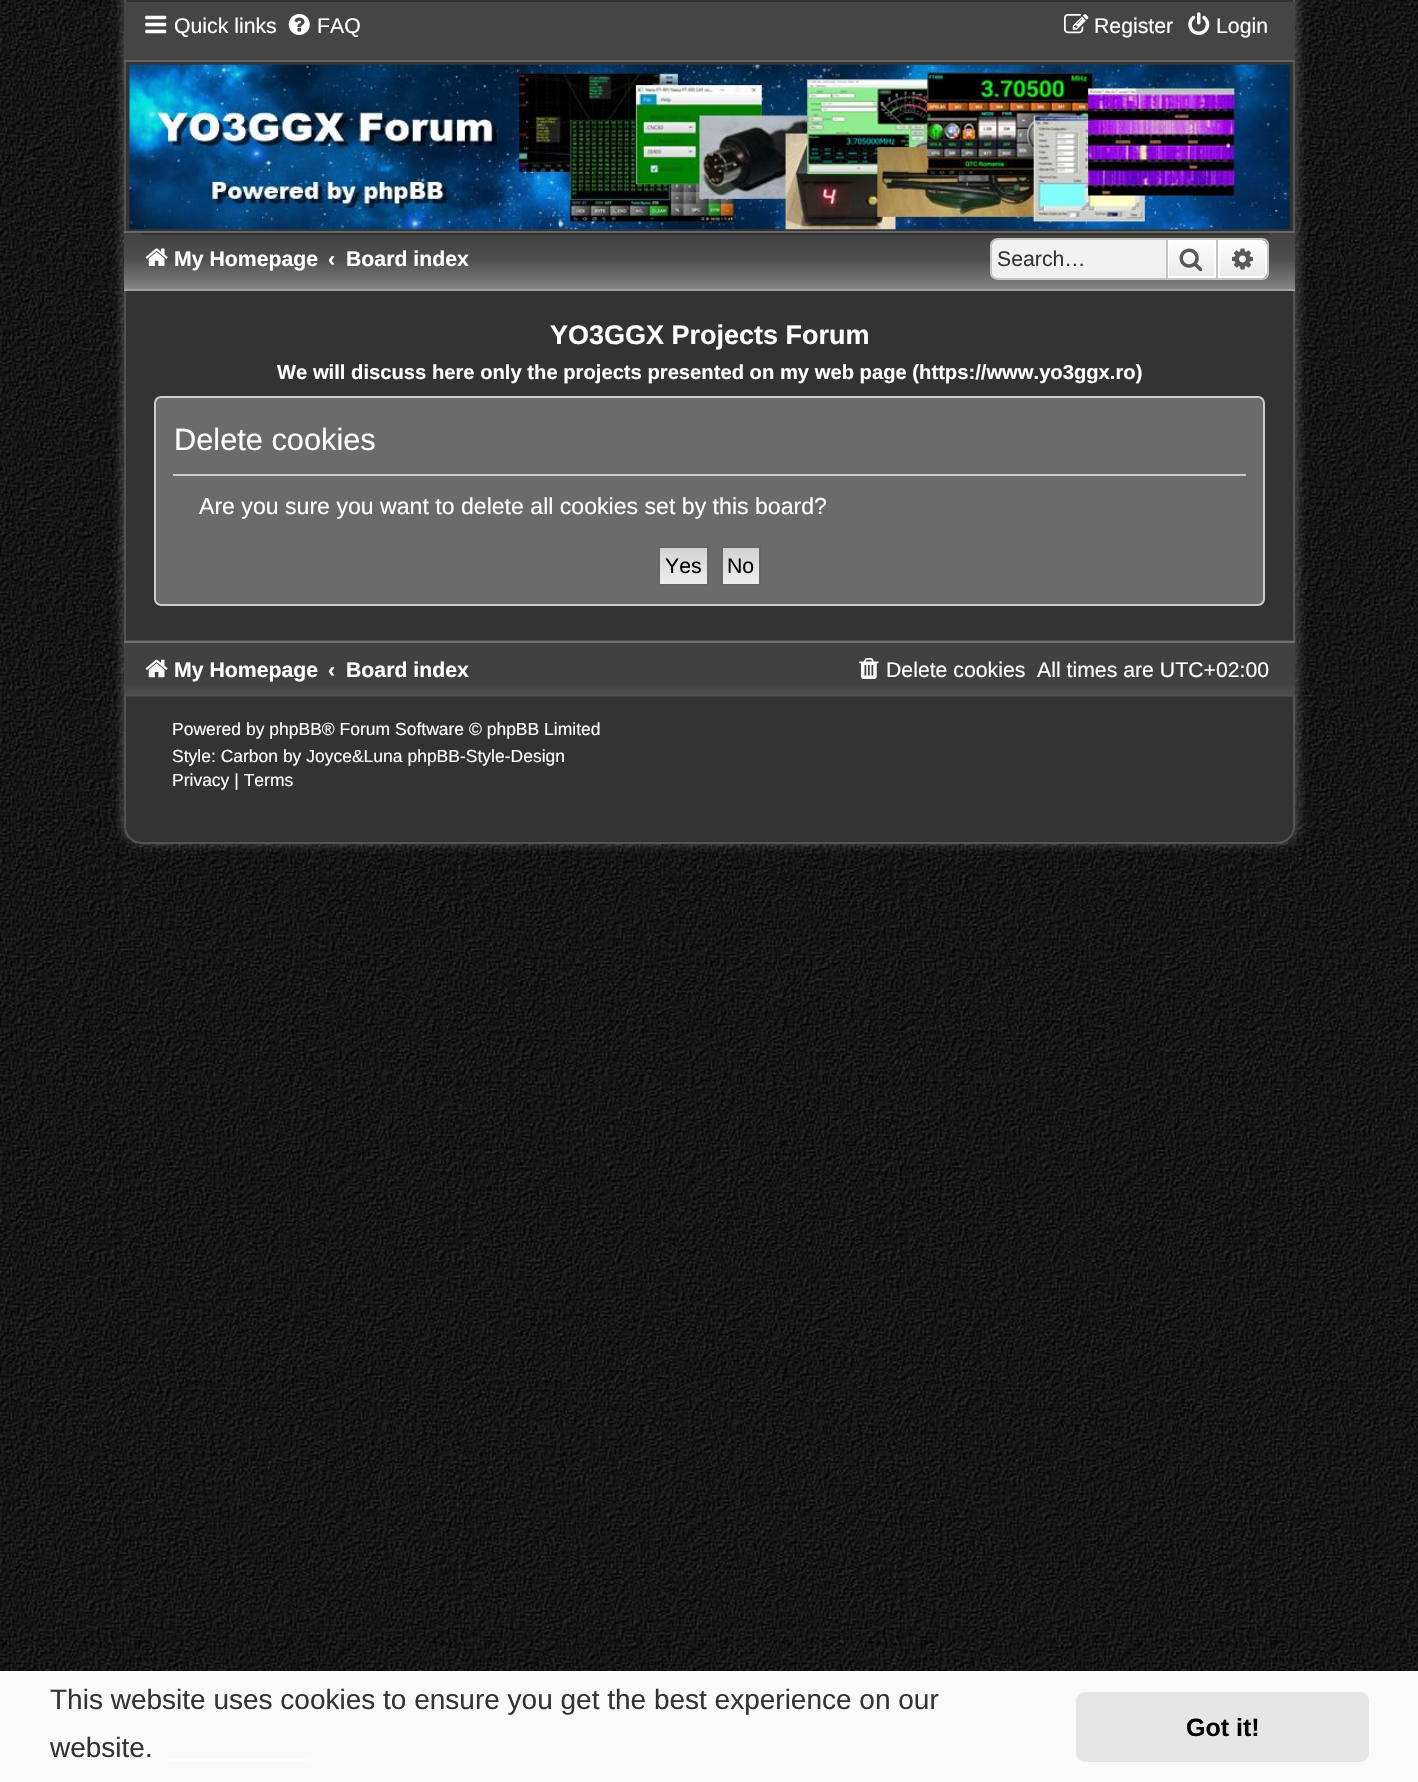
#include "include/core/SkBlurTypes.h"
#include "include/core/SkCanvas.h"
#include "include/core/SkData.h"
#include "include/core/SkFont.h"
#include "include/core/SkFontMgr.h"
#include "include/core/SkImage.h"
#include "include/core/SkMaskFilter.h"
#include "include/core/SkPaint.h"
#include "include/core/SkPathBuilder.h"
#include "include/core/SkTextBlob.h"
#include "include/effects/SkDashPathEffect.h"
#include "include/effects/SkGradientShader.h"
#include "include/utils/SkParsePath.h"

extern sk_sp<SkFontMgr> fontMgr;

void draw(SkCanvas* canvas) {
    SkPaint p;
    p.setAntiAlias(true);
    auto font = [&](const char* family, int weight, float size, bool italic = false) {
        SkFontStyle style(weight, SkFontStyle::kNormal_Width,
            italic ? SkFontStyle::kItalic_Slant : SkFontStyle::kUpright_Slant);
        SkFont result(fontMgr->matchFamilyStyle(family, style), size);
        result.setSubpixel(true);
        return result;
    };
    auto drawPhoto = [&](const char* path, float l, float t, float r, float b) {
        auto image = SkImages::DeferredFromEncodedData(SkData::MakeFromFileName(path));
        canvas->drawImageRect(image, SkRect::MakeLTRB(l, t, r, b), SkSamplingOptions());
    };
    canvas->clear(0xFFFFFFFF);
    drawPhoto("media/1.png", 0, 870, 1418, 1671);
    drawPhoto("media/2.png", 0, 0, 1418, 870);
    p.setColor(0x33FFFFFF);
    p.setMaskFilter(SkMaskFilter::MakeBlur(kNormal_SkBlurStyle, 5));
    canvas->drawRoundRect(SkRect::MakeLTRB(121, -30, 1299, 845), 21, 21, p);
    p.setMaskFilter(nullptr);
    p.setColor(0xFF333333);
    canvas->drawPath(SkPathBuilder().moveTo(125, -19).lineTo(1294, -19).lineTo(1294, 826).cubicTo(1294, 835.5f, 1286.5f, 843, 1277, 843).lineTo(142, 843).cubicTo(132.5f, 843, 125, 835.5f, 125, 826).close().detach(), p);
    p.setStyle(SkPaint::kStroke_Style);
    p.setStrokeWidth(2);
    p.setColor(0xFF535453);
    canvas->drawPath(SkPathBuilder().moveTo(125, -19).lineTo(1294, -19).lineTo(1294, 826).cubicTo(1294, 835.5f, 1286.5f, 843, 1277, 843).lineTo(142, 843).cubicTo(132.5f, 843, 125, 835.5f, 125, 826).close().detach(), p);
    p.setStyle(SkPaint::kFill_Style);
    p.setColor(0xFF454545);
    canvas->drawRect(SkRect::MakeLTRB(124, 2, 1295, 60), p);
    drawPhoto("media/3.png", 145, 15, 167, 34);
    auto font1 = font("Liberation Sans", 400, 21.25f);
    p.setColor(0xFFFFFFFF);
    canvas->drawString("Quick links", 174, 33, font1, p);
    drawPhoto("media/4.png", 288, 14, 310, 35);
    canvas->drawString("FAQ", 317, 33, font1, p);
    drawPhoto("media/5.png", 1064, 14, 1089, 34);
    canvas->drawString("Register", 1094, 33, font1, p);
    drawPhoto("media/6.png", 1188, 12, 1210, 35);
    canvas->drawString("Login", 1216, 33, font1, p);
    p.setColor(0xFF616161);
    canvas->drawRect(SkRect::MakeLTRB(124, 60, 1295, 62), p);
    drawPhoto("media/7.png", 129, 64, 1290, 230);
    {
        const SkColor colors[] = {0xFF414141, 0xFF4E4E4E, 0xFF878787, 0xFFFAFAFA};
        const float stops[] = {0, 0.3f, 0.67f, 1};
        const SkPoint ends[] = {{710, 233}, {710, 320}};
        p.setShader(SkGradientShader::MakeLinear(ends, colors, stops, 4, SkTileMode::kClamp));
        p.setAlpha(255);
    }
    canvas->drawRect(SkRect::MakeLTRB(124, 233, 1295, 289), p);
    p.setShader(nullptr);
    {
        const struct { float l, t, r, b; SkColor color; } items[] = {
            {124, 231, 1295, 233, 0xFF666766},
            {124, 289, 1295, 291, 0xFFA1A2A1},
            {142, 233, 1269, 235, 0xFF333333},
        };
        for (auto [l, t, r, b, color] : items) {
            p.setColor(color);
            canvas->drawRect(SkRect::MakeLTRB(l, t, r, b), p);
        }
    }
    drawPhoto("media/8.png", 145, 248, 168, 266);
    auto font2 = font("Liberation Sans", 700, 21.25f);
    p.setColor(0xFFFFFFFF);
    {
        const struct { const char* s; float x, y; } items[] = {
            {"My Homepage", 174, 266},
            {"‹", 328, 266},
            {"Board index", 346, 266},
        };
        for (auto [s, x, y] : items) {
            canvas->drawString(s, x, y, font2, p);
        }
    }
    p.setColor(0xFFF1F1F1);
    canvas->drawPath(SkPathBuilder().moveTo(997, 240).lineTo(1166, 240).lineTo(1166, 278).lineTo(997, 278).cubicTo(994, 278, 992, 276, 992, 273).lineTo(992, 245).cubicTo(992, 242, 994, 240, 997, 240).close().detach(), p);
    p.setColor(0xFFC7C3BF);
    canvas->drawPath(SkPathBuilder(SkPathFillType::kEvenOdd).moveTo(998, 238).lineTo(1166, 238).lineTo(1166, 280).lineTo(998, 280).cubicTo(994, 280, 990, 277, 990, 273).lineTo(990, 245).cubicTo(990, 241, 994, 238, 998, 238).close().moveTo(998, 240).lineTo(1166, 240).lineTo(1166, 278).lineTo(998, 278).cubicTo(995, 278, 992, 276, 992, 273).lineTo(992, 245).cubicTo(992, 242, 995, 240, 998, 240).close().detach(), p);
    p.setColor(0xFF333333);
    canvas->drawString("Search…", 997, 266, font1, p);
    {
        const SkColor colors[] = {0xFFFFFFFF, 0xFFE9E9E9};
        const float stops[] = {0, 1};
        const SkPoint ends[] = {{1192, 240}, {1192, 278}};
        p.setShader(SkGradientShader::MakeLinear(ends, colors, stops, 2, SkTileMode::kClamp));
        p.setAlpha(255);
    }
    canvas->drawRect(SkRect::MakeLTRB(1169, 242, 1214, 276), p);
    p.setStyle(SkPaint::kStroke_Style);
    p.setShader(nullptr);
    p.setColor(0xFFFFFFFF);
    canvas->drawRect(SkRect::MakeLTRB(1168, 241, 1215, 277), p);
    p.setColor(0xFFC7C3BF);
    canvas->drawRect(SkRect::MakeLTRB(1167, 239, 1217, 279), p);
    drawPhoto("media/9.png", 1179, 248, 1203, 272);
    p.setStyle(SkPaint::kFill_Style);
    {
        const SkColor colors[] = {0xFFFFFFFF, 0xFFE9E9E9};
        const float stops[] = {0, 1};
        const SkPoint ends[] = {{1243, 240}, {1243, 278}};
        p.setShader(SkGradientShader::MakeLinear(ends, colors, stops, 2, SkTileMode::kClamp));
        p.setAlpha(255);
    }
    canvas->drawPath(SkPathBuilder().moveTo(1219, 241).lineTo(1262, 241).cubicTo(1264, 241, 1266, 243, 1266, 245).lineTo(1266, 273).cubicTo(1266, 275, 1264, 277, 1262, 277).lineTo(1219, 277).close().detach(), p);
    p.setStyle(SkPaint::kStroke_Style);
    p.setShader(nullptr);
    p.setColor(0xFFFFFFFF);
    canvas->drawPath(SkPathBuilder().moveTo(1219, 241).lineTo(1262, 241).cubicTo(1264, 241, 1266, 243, 1266, 245).lineTo(1266, 273).cubicTo(1266, 275, 1264, 277, 1262, 277).lineTo(1219, 277).close().detach(), p);
    p.setStyle(SkPaint::kFill_Style);
    p.setColor(0xFFC7C3BF);
    canvas->drawPath(SkPathBuilder(SkPathFillType::kEvenOdd).moveTo(1218, 238).lineTo(1262, 238).cubicTo(1266, 238, 1269, 241, 1269, 245).lineTo(1269, 273).cubicTo(1269, 277, 1266, 280, 1262, 280).lineTo(1218, 280).close().moveTo(1218, 240).lineTo(1262, 240).cubicTo(1265, 240, 1267, 242, 1267, 245).lineTo(1267, 273).cubicTo(1267, 276, 1265, 278, 1262, 278).lineTo(1218, 278).close().detach(), p);
    drawPhoto("media/10.png", 1232, 248, 1253, 270);
    auto font3 = font("Liberation Sans", 700, 27);
    p.setColor(0xFFFFFFFF);
    canvas->drawString("YO3GGX Projects Forum", 550, 344, font3, p);
    auto font4 = font("Liberation Sans", 700, 20.2f);
    canvas->drawString("We will discuss here only the projects presented on my web page (https://www.yo3ggx.ro)", 277, 379, font4, p);
    p.setColor(0xFF6B6B6B);
    canvas->drawRoundRect(SkRect::MakeLTRB(155, 397, 1264, 605), 6, 6, p);
    p.setStyle(SkPaint::kStroke_Style);
    p.setColor(0xFFCCCCCC);
    canvas->drawRoundRect(SkRect::MakeLTRB(155, 397, 1264, 605), 6, 6, p);
    p.setStyle(SkPaint::kFill_Style);
    canvas->drawRect(SkRect::MakeLTRB(173, 474, 1246, 476), p);
    auto font5 = font("Liberation Sans", 400, 30.75f);
    p.setColor(0xFFFFFFFF);
    canvas->drawString("Delete cookies", 174, 450, font5, p);
    auto font6 = font("Liberation Sans", 400, 23.1f);
    canvas->drawString("Are you sure you want to delete all cookies set by this board?", 199, 514, font6, p);
    {
        const SkColor colors[] = {0xFFD2D2D2, 0xFFEFEFEF};
        const float stops[] = {0, 1};
        const SkPoint ends[] = {{683, 548}, {683, 585}};
        p.setShader(SkGradientShader::MakeLinear(ends, colors, stops, 2, SkTileMode::kClamp));
        p.setAlpha(255);
    }
    canvas->drawRect(SkRect::MakeLTRB(660, 548, 707, 584), p);
    p.setStyle(SkPaint::kStroke_Style);
    p.setShader(nullptr);
    p.setColor(0xFF666666);
    canvas->drawRect(SkRect::MakeLTRB(659, 547, 708, 585), p);
    p.setStyle(SkPaint::kFill_Style);
    p.setColor(0xFF000000);
    canvas->drawString("Yes", 665, 573, font1, p);
    {
        const SkColor colors[] = {0xFFD2D2D2, 0xFFEFEFEF};
        const float stops[] = {0, 1};
        const SkPoint ends[] = {{741, 548}, {741, 585}};
        p.setShader(SkGradientShader::MakeLinear(ends, colors, stops, 2, SkTileMode::kClamp));
        p.setAlpha(255);
    }
    canvas->drawRect(SkRect::MakeLTRB(723, 548, 759, 584), p);
    p.setStyle(SkPaint::kStroke_Style);
    p.setShader(nullptr);
    p.setColor(0xFF666666);
    canvas->drawRect(SkRect::MakeLTRB(722, 547, 760, 585), p);
    p.setStyle(SkPaint::kFill_Style);
    p.setColor(0xFF000000);
    canvas->drawString("No", 727, 573, font1, p);
    drawPhoto("media/11.png", 124, 640, 1295, 697);
    p.setColor(0xFF707070);
    canvas->drawRect(SkRect::MakeLTRB(124, 641, 1295, 643), p);
    drawPhoto("media/12.png", 145, 659, 168, 678);
    p.setColor(0xFFFFFFFF);
    {
        const struct { const char* s; float x, y; } items[] = {
            {"My Homepage", 174, 677},
            {"‹", 328, 677},
            {"Board index", 346, 677},
        };
        for (auto [s, x, y] : items) {
            canvas->drawString(s, x, y, font2, p);
        }
    }
    drawPhoto("media/13.png", 859, 658, 879, 679);
    canvas->drawString("Delete cookies", 886, 677, font1, p);
    canvas->drawString("All times are UTC+02:00", 1037, 677, font1, p);
    auto font7 = font("Liberation Sans", 400, 17.5f);
    {
        const struct { const char* s; float x, y; } items[] = {
            {"Powered by phpBB® Forum Software © phpBB Limited", 172, 735},
            {"Style: Carbon by Joyce&Luna phpBB-Style-Design", 172, 762},
            {"Privacy | Terms", 172, 786},
        };
        for (auto [s, x, y] : items) {
            canvas->drawString(s, x, y, font7, p);
        }
    }
    p.setColor(0xFFFAFAFA);
    canvas->drawRect(SkRect::MakeLTRB(0, 1671, 1418, 1782), p);
    auto font8 = font("Liberation Sans", 400, 28);
    p.setColor(0xFF333333);
    canvas->drawString("This website uses cookies to ensure you get the best experience on our", 50, 1709, font8, p);
    canvas->drawString("website.", 50, 1757, font8, p);
    p.setColor(0xFFFEFEFE);
    canvas->drawRect(SkRect::MakeLTRB(166, 1759, 310, 1761), p);
    p.setColor(0xFFE5E5E5);
    canvas->drawRoundRect(SkRect::MakeLTRB(1076, 1692, 1369, 1762), 9, 9, p);
    auto font9 = font("Liberation Sans", 700, 25);
    p.setColor(0xFF000000);
    canvas->drawString("Got it!", 1186, 1736, font9, p);
}
